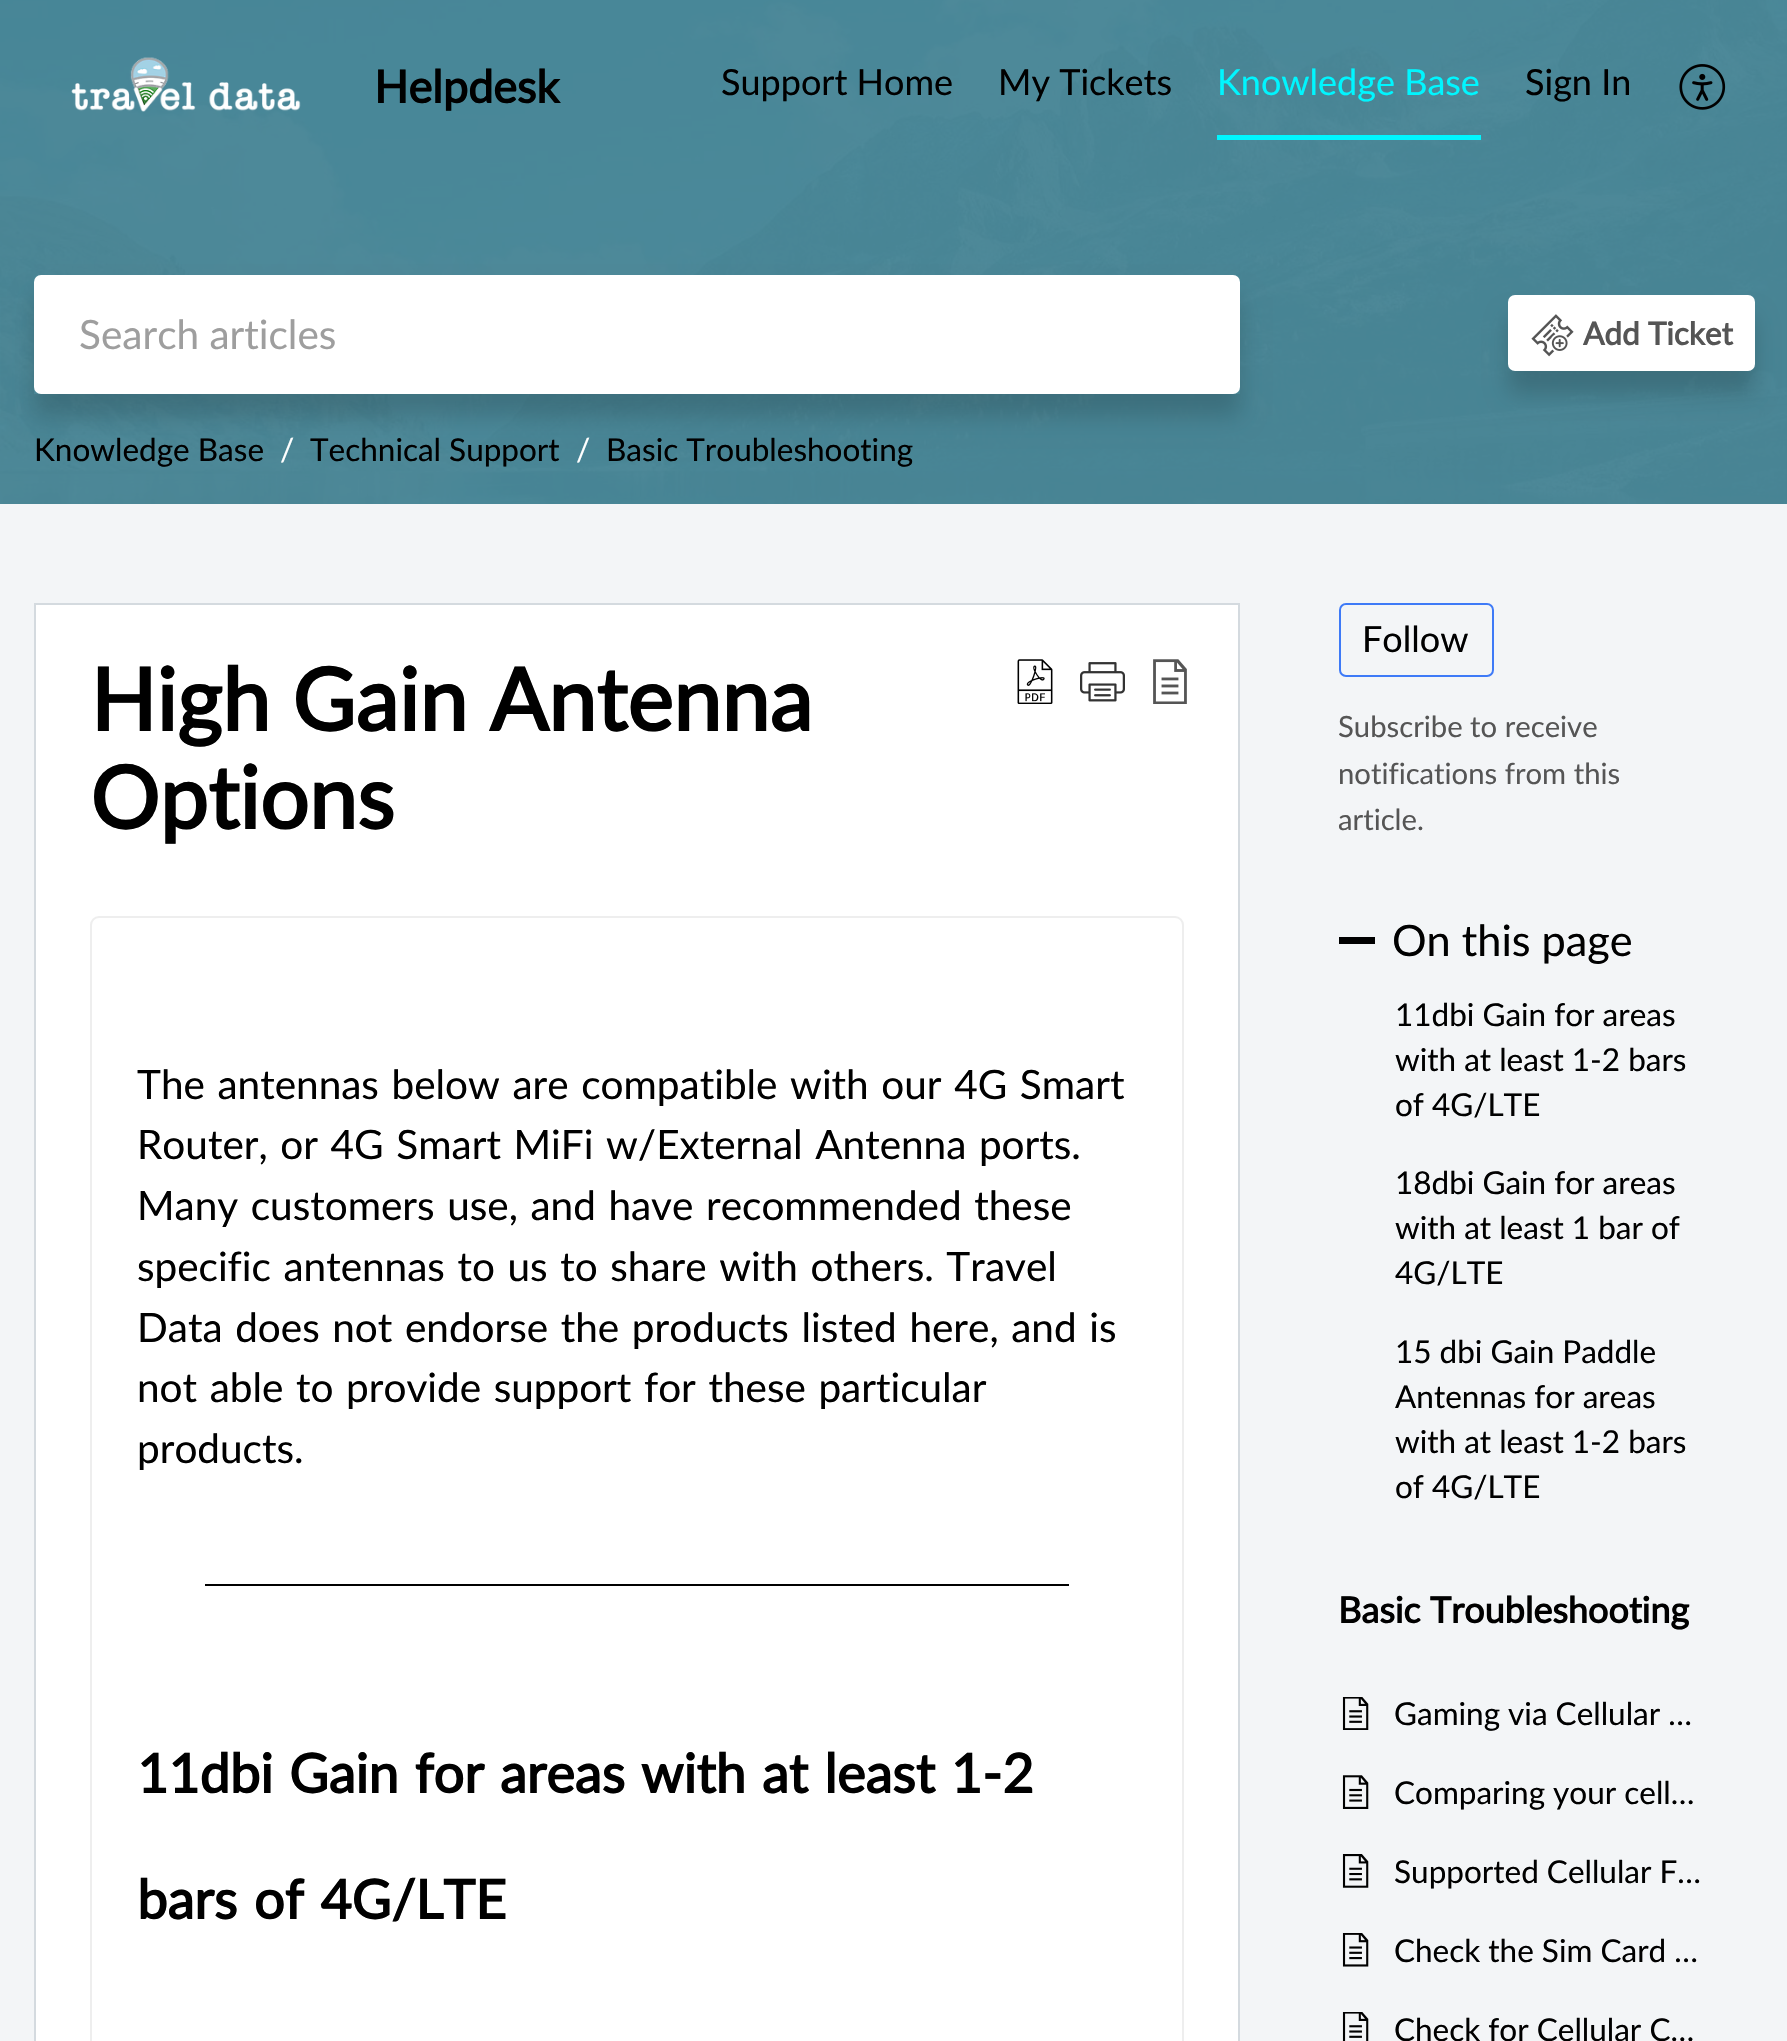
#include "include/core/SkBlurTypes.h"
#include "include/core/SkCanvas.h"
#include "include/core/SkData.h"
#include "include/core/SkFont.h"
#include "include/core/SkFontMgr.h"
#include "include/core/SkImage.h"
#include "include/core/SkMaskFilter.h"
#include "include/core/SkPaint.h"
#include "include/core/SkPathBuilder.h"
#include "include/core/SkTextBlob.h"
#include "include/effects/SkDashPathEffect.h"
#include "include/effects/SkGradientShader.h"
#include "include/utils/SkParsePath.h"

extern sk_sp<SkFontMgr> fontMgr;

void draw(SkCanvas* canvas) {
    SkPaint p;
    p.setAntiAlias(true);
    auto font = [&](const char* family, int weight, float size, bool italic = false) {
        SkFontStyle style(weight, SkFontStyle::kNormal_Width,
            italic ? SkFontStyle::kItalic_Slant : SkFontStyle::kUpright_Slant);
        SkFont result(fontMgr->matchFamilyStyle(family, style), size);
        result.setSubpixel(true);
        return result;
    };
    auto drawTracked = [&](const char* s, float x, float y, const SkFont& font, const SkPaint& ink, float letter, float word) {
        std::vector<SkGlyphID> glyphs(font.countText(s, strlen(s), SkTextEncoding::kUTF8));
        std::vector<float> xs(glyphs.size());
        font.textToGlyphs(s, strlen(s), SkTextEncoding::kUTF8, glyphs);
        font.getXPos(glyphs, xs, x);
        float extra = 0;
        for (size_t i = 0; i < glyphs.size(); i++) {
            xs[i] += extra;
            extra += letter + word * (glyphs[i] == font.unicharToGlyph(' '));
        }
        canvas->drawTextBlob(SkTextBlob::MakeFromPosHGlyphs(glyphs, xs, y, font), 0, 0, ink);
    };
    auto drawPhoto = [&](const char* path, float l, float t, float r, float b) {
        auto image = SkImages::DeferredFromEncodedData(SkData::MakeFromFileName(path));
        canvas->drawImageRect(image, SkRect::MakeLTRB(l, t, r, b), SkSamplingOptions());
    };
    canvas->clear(0xFFF3F5F7);
    drawPhoto("media/1.png", 0, 0, 1787, 504);
    drawPhoto("media/2.png", 71, 57, 301, 112);
    auto font1 = font("Lato", 700, 45);
    p.setColor(0xFF000000);
    canvas->drawString("Helpdesk", 374, 103, font1, p);
    auto font2 = font("Lato", 400, 36);
    canvas->drawString("Support Home", 721, 95, font2, p);
    canvas->drawString("My Tickets", 998, 95, font2, p);
    p.setColor(0xFF00F6FF);
    canvas->drawRect(SkRect::MakeLTRB(1217, 135, 1481, 140), p);
    canvas->drawString("Knowledge Base", 1217, 95, font2, p);
    p.setColor(0xFF000000);
    canvas->drawString("Sign In", 1525, 95, font2, p);
    drawPhoto("media/3.png", 1679, 64, 1726, 110);
    canvas->save();
    canvas->clipPath(SkPathBuilder(SkPathFillType::kEvenOdd).moveTo(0, 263).lineTo(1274, 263).lineTo(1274, 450).lineTo(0, 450).close().moveTo(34, 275).lineTo(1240, 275).lineTo(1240, 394).lineTo(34, 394).close().detach(), true);
    p.setColor(0x29000000);
    p.setMaskFilter(SkMaskFilter::MakeBlur(kNormal_SkBlurStyle, 11));
    canvas->drawRect(SkRect::MakeLTRB(34, 297, 1240, 416), p);
    p.setMaskFilter(nullptr);
    canvas->restore();
    p.setColor(0xFFFFFFFF);
    canvas->drawRoundRect(SkRect::MakeLTRB(34, 275, 1240, 394), 7, 7, p);
    auto font3 = font("Lato", 400, 40.5f);
    p.setColor(0xFF9E9E9E);
    canvas->drawString("Search articles", 79, 349, font3, p);
    p.setColor(0x29000000);
    p.setMaskFilter(SkMaskFilter::MakeBlur(kNormal_SkBlurStyle, 11));
    canvas->drawRoundRect(SkRect::MakeLTRB(1508, 317, 1755, 394), 7, 7, p);
    p.setMaskFilter(nullptr);
    p.setColor(0xFFFFFFFF);
    canvas->drawRoundRect(SkRect::MakeLTRB(1508, 295, 1755, 371), 7, 7, p);
    drawPhoto("media/4.png", 1531, 314, 1574, 357);
    auto font4 = font("Lato", 700, 31.5f);
    p.setColor(0xFF555555);
    canvas->drawString("Add Ticket", 1583, 345, font4, p);
    auto font5 = font("Lato", 400, 31.5f);
    p.setColor(0xFF000000);
    canvas->drawString("Knowledge Base", 34, 461, font5, p);
    p.setColor(0xFFFFFFFF);
    canvas->drawString("/", 280, 461, font5, p);
    p.setColor(0xFF000000);
    canvas->drawString("Technical Support", 310, 461, font5, p);
    p.setColor(0xFFFFFFFF);
    canvas->drawString("/", 576, 461, font5, p);
    p.setColor(0xFF000000);
    canvas->drawString("Basic Troubleshooting", 606, 461, font5, p);
    p.setColor(0xFFFFFFFF);
    canvas->drawRect(SkRect::MakeLTRB(35, 604, 1239, 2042), p);
    p.setStyle(SkPaint::kStroke_Style);
    p.setStrokeWidth(2);
    p.setColor(0xFFD4DADF);
    canvas->drawRect(SkRect::MakeLTRB(35, 604, 1239, 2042), p);
    auto font6 = font("Lato", 700, 86.5f);
    p.setStyle(SkPaint::kFill_Style);
    p.setColor(0xFF000000);
    canvas->drawString("High Gain Antenna", 90, 731, font6, p);
    canvas->drawString("Options", 90, 829, font6, p);
    drawPhoto("media/5.png", 1017, 659, 1053, 704);
    drawPhoto("media/6.png", 1080, 662, 1125, 702);
    drawPhoto("media/7.png", 1153, 659, 1187, 704);
    p.setStyle(SkPaint::kStroke_Style);
    p.setColor(0xFFEEEEEE);
    canvas->drawRoundRect(SkRect::MakeLTRB(91, 917, 1183, 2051), 8, 8, p);
    p.setStyle(SkPaint::kFill_Style);
    p.setColor(0xFF000000);
    {
        const struct { const char* s; float x, y; } items[] = {
            {"The antennas below are compatible with our 4G Smart", 137, 1099},
            {"Router, or 4G Smart MiFi w/External Antenna ports.", 137, 1159},
            {"Many customers use, and have recommended these", 137, 1220},
            {"specific antennas to us to share with others. Travel", 137, 1281},
            {"Data does not endorse the products listed here, and is", 137, 1342},
            {"not able to provide support for these particular", 137, 1402},
        };
        for (auto [s, x, y] : items) {
            drawTracked(s, x, y, font3, p, 0, 2.25f);
        }
    }
    canvas->drawString("products.", 137, 1463, font3, p);
    canvas->drawRect(SkRect::MakeLTRB(205, 1584, 1069, 1586), p);
    auto font7 = font("Lato", 700, 54);
    drawTracked("11dbi Gain for areas with at least 1-2", 137, 1793, font7, p, 0, 2.25f);
    drawTracked("bars of 4G/LTE", 137, 1919, font7, p, 0, 3);
    p.setStyle(SkPaint::kStroke_Style);
    p.setColor(0xFF3E7AF7);
    canvas->drawRoundRect(SkRect::MakeLTRB(1340, 604, 1493, 676), 6, 6, p);
    p.setStyle(SkPaint::kFill_Style);
    p.setColor(0xFF000000);
    canvas->drawString("Follow", 1362, 652, font2, p);
    auto font8 = font("Lato", 400, 29.25f);
    p.setColor(0xFF555555);
    {
        const struct { const char* s; float x, y; } items[] = {
            {"Subscribe to receive", 1338, 737},
            {"notifications from this", 1338, 784},
            {"article.", 1338, 830},
        };
        for (auto [s, x, y] : items) {
            canvas->drawString(s, x, y, font8, p);
        }
    }
    p.setColor(0xFF000000);
    canvas->drawRect(SkRect::MakeLTRB(1339, 937, 1375, 944), p);
    auto font9 = font("Lato", 400, 43.25f);
    canvas->drawString("On this page", 1392, 956, font9, p);
    {
        const struct { const char* s; float x, y; } items[] = {
            {"11dbi Gain for areas", 1395, 1026},
            {"with at least 1-2 bars", 1395, 1071},
            {"of 4G/LTE", 1395, 1116},
            {"18dbi Gain for areas", 1395, 1194},
            {"with at least 1 bar of", 1395, 1239},
            {"4G/LTE", 1395, 1284},
            {"15 dbi Gain Paddle", 1395, 1363},
            {"Antennas for areas", 1395, 1408},
            {"with at least 1-2 bars", 1395, 1453},
            {"of 4G/LTE", 1395, 1498},
        };
        for (auto [s, x, y] : items) {
            canvas->drawString(s, x, y, font5, p);
        }
    }
    auto font10 = font("Lato", 700, 36);
    canvas->drawString("Basic Troubleshooting", 1338, 1623, font10, p);
    drawPhoto("media/8.png", 1342, 1697, 1369, 1730);
    canvas->drawString("Gaming via Cellular …", 1394, 1725, font5, p);
    drawPhoto("media/9.png", 1342, 1775, 1369, 1809);
    canvas->drawString("Comparing your cell…", 1394, 1804, font5, p);
    drawPhoto("media/10.png", 1342, 1854, 1369, 1888);
    canvas->drawString("Supported Cellular F…", 1394, 1883, font5, p);
    drawPhoto("media/11.png", 1342, 1933, 1369, 1967);
    canvas->drawString("Check the Sim Card …", 1394, 1962, font5, p);
    drawPhoto("media/12.png", 1342, 2012, 1369, 2041);
    canvas->drawString("Check for Cellular C…", 1394, 2041, font5, p);
}
